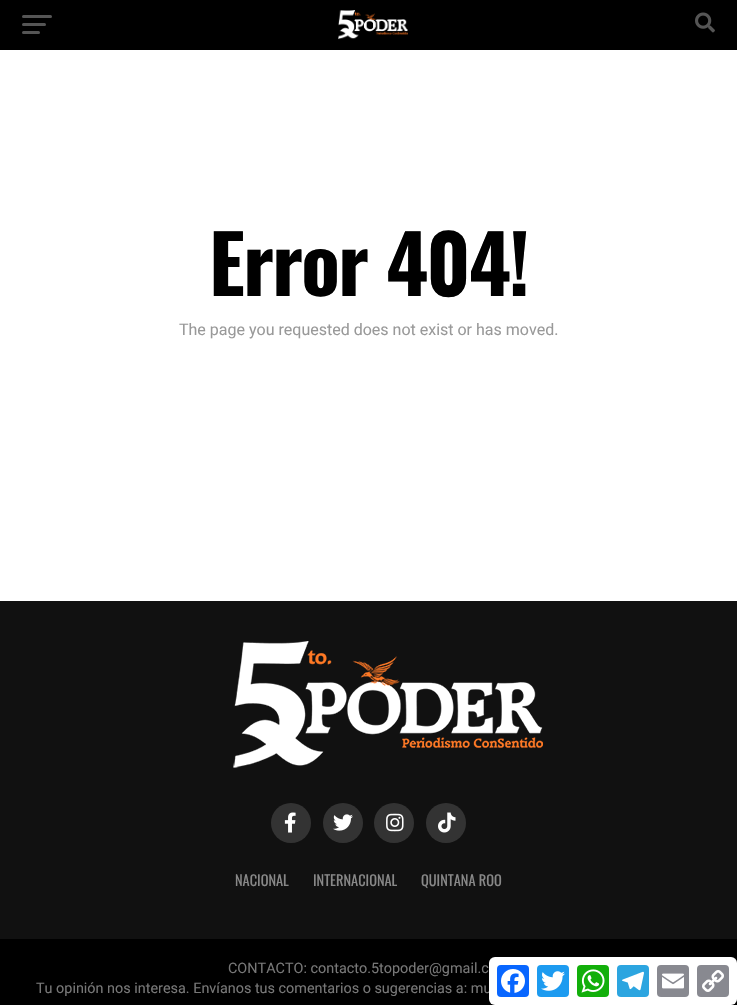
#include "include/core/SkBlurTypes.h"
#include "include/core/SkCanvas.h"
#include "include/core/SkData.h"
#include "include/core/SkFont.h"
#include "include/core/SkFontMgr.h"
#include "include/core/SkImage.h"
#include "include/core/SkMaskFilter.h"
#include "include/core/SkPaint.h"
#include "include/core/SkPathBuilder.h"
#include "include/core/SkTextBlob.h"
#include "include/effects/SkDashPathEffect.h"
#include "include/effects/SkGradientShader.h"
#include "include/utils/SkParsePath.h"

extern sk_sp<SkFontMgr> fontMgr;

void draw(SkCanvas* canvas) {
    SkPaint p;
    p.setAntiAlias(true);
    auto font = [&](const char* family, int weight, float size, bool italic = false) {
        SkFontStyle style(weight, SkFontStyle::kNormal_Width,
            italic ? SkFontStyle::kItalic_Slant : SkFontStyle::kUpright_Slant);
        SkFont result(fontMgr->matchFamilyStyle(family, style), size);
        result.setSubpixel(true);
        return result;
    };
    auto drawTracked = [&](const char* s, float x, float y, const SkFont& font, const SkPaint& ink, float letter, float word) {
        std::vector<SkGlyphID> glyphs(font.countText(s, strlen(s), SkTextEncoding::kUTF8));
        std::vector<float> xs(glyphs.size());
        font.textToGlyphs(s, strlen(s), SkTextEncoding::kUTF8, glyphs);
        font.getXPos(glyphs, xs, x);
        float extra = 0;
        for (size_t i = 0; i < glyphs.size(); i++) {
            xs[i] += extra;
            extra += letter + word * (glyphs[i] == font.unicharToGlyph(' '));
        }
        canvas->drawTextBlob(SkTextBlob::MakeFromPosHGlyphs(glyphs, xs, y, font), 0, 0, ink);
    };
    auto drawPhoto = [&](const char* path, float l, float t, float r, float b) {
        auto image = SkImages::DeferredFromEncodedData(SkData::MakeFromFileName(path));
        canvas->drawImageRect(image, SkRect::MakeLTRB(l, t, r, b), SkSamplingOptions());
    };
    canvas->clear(0xFFFFFFFF);
    p.setColor(0xFF000000);
    canvas->drawRect(SkRect::MakeLTRB(0, 0, 737, 50), p);
    p.setColor(0xFF555555);
    canvas->drawRoundRect(SkRect::MakeLTRB(22, 15, 52, 18), 1.5f, 1.5f, p);
    canvas->drawRoundRect(SkRect::MakeLTRB(22, 23, 46, 26), 1.5f, 1.5f, p);
    canvas->drawRoundRect(SkRect::MakeLTRB(22, 31, 40, 34), 1.5f, 1.5f, p);
    drawPhoto("media/1.png", 338, 10, 408, 40);
    drawPhoto("media/2.png", 695, 12, 715, 33);
    auto font1 = font("Oswald", 700, 80);
    p.setColor(0xFF000000);
    drawTracked("Error 404!", 209, 296, font1, p, -1.6f, 0);
    auto font2 = font("Roboto", 400, 16);
    p.setColor(0xFF999999);
    canvas->drawString("The page you requested does not exist or has moved.", 179, 335, font2, p);
    p.setColor(0xFF111111);
    canvas->drawRect(SkRect::MakeLTRB(0, 601, 737, 939), p);
    drawPhoto("media/3.png", 233, 641, 543, 768);
    p.setColor(0xFF333333);
    canvas->drawCircle(291, 823, 20, p);
    drawPhoto("media/4.png", 284, 812, 296, 833);
    canvas->drawCircle(343, 823, 20, p);
    drawPhoto("media/5.png", 333, 814, 353, 831);
    canvas->drawCircle(394, 823, 20, p);
    drawPhoto("media/6.png", 386, 813, 404, 832);
    canvas->drawCircle(446, 823, 20, p);
    drawPhoto("media/7.png", 438, 812, 456, 833);
    auto font3 = font("Oswald", 400, 14.4f);
    p.setColor(0xFF888888);
    {
        const struct { const char* s; float x, y; } items[] = {
            {"NACIONAL", 235, 886},
            {"INTERNACIONAL", 313, 886},
            {"QUINTANA ROO", 421, 886},
        };
        for (auto [s, x, y] : items) {
            canvas->drawString(s, x, y, font3, p);
        }
    }
    p.setColor(0xFF000000);
    canvas->drawRect(SkRect::MakeLTRB(0, 939, 737, 1005), p);
    auto font4 = font("Roboto", 400, 14.4f);
    p.setColor(0xFF777777);
    canvas->drawString("CONTACTO: contacto.5topoder@gmail.c", 228, 973, font4, p);
    canvas->drawString("Tu opinión nos interesa. Envíanos tus comentarios o sugerencias a: mu", 36, 993, font4, p);
    p.setColor(0xFFFFFFFF);
    canvas->drawRoundRect(SkRect::MakeLTRB(489, 957, 737, 1005), 6, 6, p);
    p.setColor(0xFF0866FF);
    canvas->drawRoundRect(SkRect::MakeLTRB(497, 965, 529, 997), 4, 4, p);
    drawPhoto("media/8.png", 501, 969, 525, 993);
    p.setColor(0xFF1D9BF0);
    canvas->drawRoundRect(SkRect::MakeLTRB(537, 965, 569, 997), 4, 4, p);
    drawPhoto("media/9.png", 541, 971, 565, 991);
    p.setColor(0xFF12AF0A);
    canvas->drawRoundRect(SkRect::MakeLTRB(577, 965, 609, 997), 4, 4, p);
    drawPhoto("media/10.png", 581, 969, 605, 993);
    p.setColor(0xFF2CA5E0);
    canvas->drawRoundRect(SkRect::MakeLTRB(617, 965, 649, 997), 4, 4, p);
    drawPhoto("media/11.png", 622, 971, 644, 991);
    p.setColor(0xFF888990);
    canvas->drawRoundRect(SkRect::MakeLTRB(657, 965, 689, 997), 4, 4, p);
    drawPhoto("media/12.png", 662, 973, 684, 989);
    canvas->drawRoundRect(SkRect::MakeLTRB(697, 965, 729, 997), 4, 4, p);
    drawPhoto("media/13.png", 702, 970, 724, 992);
}
